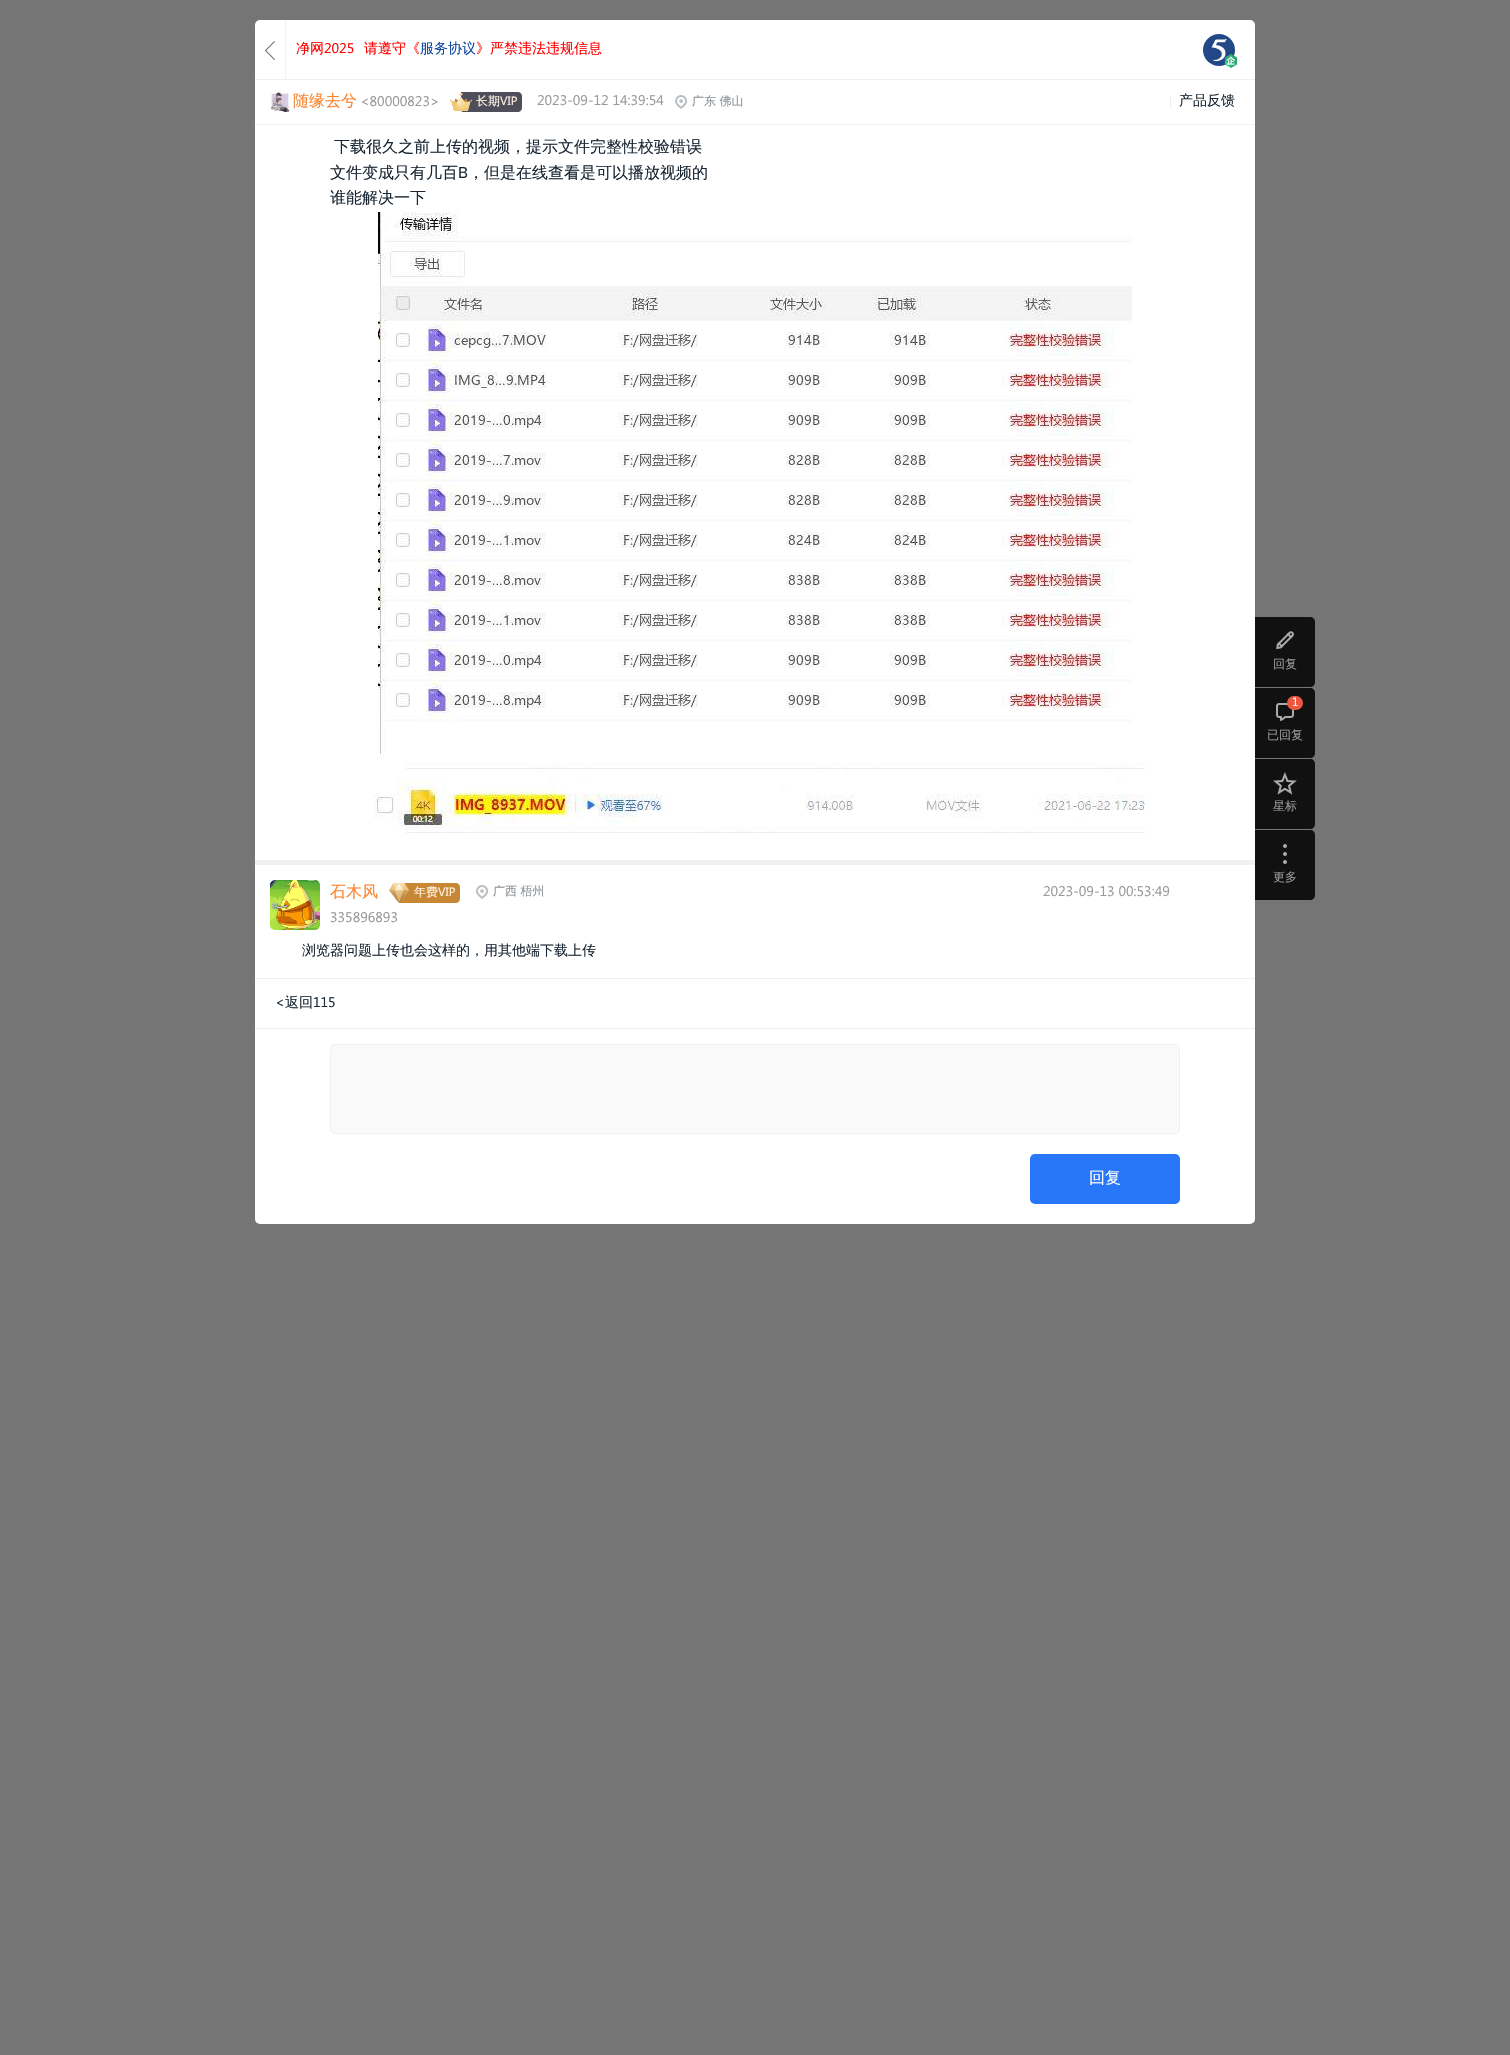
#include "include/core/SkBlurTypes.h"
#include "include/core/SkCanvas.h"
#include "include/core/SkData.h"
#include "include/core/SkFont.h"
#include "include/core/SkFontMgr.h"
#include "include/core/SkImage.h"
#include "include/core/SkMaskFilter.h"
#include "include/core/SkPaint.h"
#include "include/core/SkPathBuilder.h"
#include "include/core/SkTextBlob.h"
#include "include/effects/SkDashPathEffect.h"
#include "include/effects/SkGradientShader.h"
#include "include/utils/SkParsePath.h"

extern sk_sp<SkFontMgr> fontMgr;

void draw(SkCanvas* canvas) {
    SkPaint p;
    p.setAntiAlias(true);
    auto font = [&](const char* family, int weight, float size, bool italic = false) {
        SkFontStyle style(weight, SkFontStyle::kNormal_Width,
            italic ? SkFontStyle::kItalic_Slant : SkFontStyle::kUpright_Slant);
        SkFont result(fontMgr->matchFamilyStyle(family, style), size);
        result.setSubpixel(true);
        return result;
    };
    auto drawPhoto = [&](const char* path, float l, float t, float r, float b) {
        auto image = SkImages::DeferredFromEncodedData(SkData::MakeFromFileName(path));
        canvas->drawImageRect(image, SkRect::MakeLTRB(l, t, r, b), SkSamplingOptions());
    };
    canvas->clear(0xFF757575);
    p.setColor(0xFFFFFFFF);
    canvas->drawRoundRect(SkRect::MakeLTRB(255, 20, 1255, 1224), 5, 5, p);
    p.setColor(0xFFF0F0F0);
    canvas->drawRect(SkRect::MakeLTRB(255, 79, 1255, 80), p);
    p.setColor(0xFFF2F2F2);
    canvas->drawRect(SkRect::MakeLTRB(285, 20, 286, 80), p);
    drawPhoto("media/1.png", 265, 41, 275, 60);
    auto font1 = font("WenQuanYi Zen Hei", 500, 14);
    p.setColor(0xFFFF0000);
    canvas->drawString("净网", 296, 53, font1, p);
    auto font2 = font("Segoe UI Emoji", 400, 14);
    canvas->drawString("2025", 324, 53, font2, p);
    canvas->drawString("请遵守《", 364, 53, font1, p);
    p.setColor(0xFF0D47A1);
    canvas->drawString("服务协议", 420, 53, font1, p);
    p.setColor(0xFFFF0000);
    canvas->drawString("》严禁违法违规信息", 476, 53, font1, p);
    drawPhoto("media/2.png", 1203, 34, 1235, 66);
    drawPhoto("media/3.png", 1224, 54, 1238, 68);
    p.setColor(0xFFF2F2F2);
    canvas->drawRect(SkRect::MakeLTRB(255, 124, 1255, 125), p);
    drawPhoto("media/4.png", 270, 92, 290, 112);
    auto font3 = font("WenQuanYi Zen Hei", 500, 16);
    p.setColor(0xFFFC8530);
    canvas->drawString("随缘去兮", 293, 106, font3, p);
    p.setColor(0xFF999999);
    canvas->drawString("<80000823>", 360, 106, font2, p);
    p.setColor(0xFF4E4F5A);
    canvas->drawPath(SkPathBuilder().moveTo(461, 92).lineTo(518, 92).cubicTo(520, 92, 522, 94, 522, 96).lineTo(522, 108).cubicTo(522, 110, 520, 112, 518, 112).lineTo(463, 112).cubicTo(462, 112, 461, 111, 461, 110).close().detach(), p);
    drawPhoto("media/5.png", 450, 93, 472, 111);
    auto font4 = font("WenQuanYi Zen Hei", 500, 12);
    p.setColor(0xFFFFF3E2);
    canvas->drawString("长期", 476, 105, font4, p);
    auto font5 = font("Segoe UI Emoji", 400, 12);
    canvas->drawString("VIP", 500, 105, font5, p);
    p.setColor(0xFF999999);
    canvas->drawString("2023-09-12 14:39:54", 537, 105, font2, p);
    drawPhoto("media/6.png", 675, 95, 688, 109);
    p.setColor(0xFF8C9399);
    canvas->drawString("广东 佛山", 692, 105, font4, p);
    p.setColor(0xFFEEEEEE);
    canvas->drawRect(SkRect::MakeLTRB(1170, 96, 1171, 108), p);
    p.setColor(0xFF1A2734);
    canvas->drawString("产品反馈", 1179, 105, font1, p);
    {
        const struct { const char* s; float x, y; } items[] = {
            {"下载很久之前上传的视频，提示文件完整性校验错误", 334, 152},
            {"文件变成只有几百B，但是在线查看是可以播放视频的", 330, 178},
            {"谁能解决一下", 330, 203},
        };
        for (auto [s, x, y] : items) {
            canvas->drawString(s, x, y, font3, p);
        }
    }
    drawPhoto("media/7.png", 378, 212, 1132, 754);
    drawPhoto("media/8.png", 374, 763, 1145, 833);
    p.setColor(0xFFF1F1F1);
    canvas->drawRect(SkRect::MakeLTRB(255, 860, 1255, 865), p);
    p.setColor(0xFFF0F0F0);
    canvas->drawRect(SkRect::MakeLTRB(255, 978, 1255, 979), p);
    drawPhoto("media/9.png", 270, 880, 320, 930);
    p.setColor(0xFFFC8530);
    canvas->drawString("石木风", 330, 897, font3, p);
    p.setColor(0xFFC88735);
    canvas->drawPath(SkPathBuilder().moveTo(399, 883).lineTo(456, 883).cubicTo(458, 883, 460, 885, 460, 887).lineTo(460, 899).cubicTo(460, 901, 458, 903, 456, 903).lineTo(399, 903).close().detach(), p);
    drawPhoto("media/10.png", 389, 883, 409, 903);
    p.setColor(0xFFFFF3E2);
    canvas->drawString("年费", 414, 896, font4, p);
    canvas->drawString("VIP", 438, 896, font5, p);
    drawPhoto("media/6.png", 476, 885, 489, 899);
    p.setColor(0xFF8C9399);
    canvas->drawString("广西 梧州", 493, 895, font4, p);
    p.setColor(0xFF999999);
    canvas->drawString("335896893", 330, 922, font2, p);
    canvas->drawString("2023-09-13 00:53:49", 1043, 896, font2, p);
    p.setColor(0xFF1A2734);
    canvas->drawString("浏览器问题上传也会这样的，用其他端下载上传", 302, 955, font1, p);
    canvas->drawString("<", 275, 1007, font2, p);
    canvas->drawString("返回", 285, 1007, font1, p);
    canvas->drawString("115", 313, 1007, font2, p);
    p.setColor(0xFFF0F0F0);
    canvas->drawRect(SkRect::MakeLTRB(255, 1028, 1255, 1029), p);
    p.setColor(0xFFF9F9F9);
    canvas->drawRoundRect(SkRect::MakeLTRB(330.5f, 1044.5f, 1179.5f, 1133.5f), 4.5f, 4.5f, p);
    p.setStyle(SkPaint::kStroke_Style);
    p.setStrokeWidth(1);
    p.setColor(0xFFF0F0F0);
    canvas->drawRoundRect(SkRect::MakeLTRB(330.5f, 1044.5f, 1179.5f, 1133.5f), 4.5f, 4.5f, p);
    p.setStyle(SkPaint::kFill_Style);
    p.setColor(0xFF2777F8);
    canvas->drawRoundRect(SkRect::MakeLTRB(1030, 1154, 1180, 1204), 5, 5, p);
    p.setColor(0xFFFFFFFF);
    canvas->drawString("回复", 1089, 1183, font3, p);
    p.setColor(0xFF111111);
    canvas->drawPath(SkPathBuilder().moveTo(1255, 617).lineTo(1310, 617).cubicTo(1313, 617, 1315, 619, 1315, 622).lineTo(1315, 682).cubicTo(1315, 685, 1313, 687, 1310, 687).lineTo(1255, 687).close().detach(), p);
    drawPhoto("media/11.png", 1276, 631, 1294, 650);
    p.setColor(0xFF999999);
    canvas->drawString("回复", 1273, 668, font4, p);
    p.setColor(0xFF111111);
    canvas->drawPath(SkPathBuilder().moveTo(1255, 688).lineTo(1310, 688).cubicTo(1313, 688, 1315, 690, 1315, 693).lineTo(1315, 753).cubicTo(1315, 756, 1313, 758, 1310, 758).lineTo(1255, 758).close().detach(), p);
    drawPhoto("media/12.png", 1276, 703, 1294, 721);
    p.setColor(0xFFEF5640);
    canvas->drawRoundRect(SkRect::MakeLTRB(1287, 696, 1303, 710), 7, 7, p);
    p.setColor(0xFFFFFFFF);
    canvas->drawString("1", 1292, 706, font5, p);
    p.setColor(0xFF999999);
    canvas->drawString("已回复", 1267, 739, font4, p);
    p.setColor(0xFF111111);
    canvas->drawPath(SkPathBuilder().moveTo(1255, 759).lineTo(1310, 759).cubicTo(1313, 759, 1315, 761, 1315, 764).lineTo(1315, 824).cubicTo(1315, 827, 1313, 829, 1310, 829).lineTo(1255, 829).close().detach(), p);
    drawPhoto("media/13.png", 1273, 772, 1297, 795);
    p.setColor(0xFF999999);
    canvas->drawString("星标", 1273, 810, font4, p);
    p.setColor(0xFF111111);
    canvas->drawPath(SkPathBuilder().moveTo(1255, 830).lineTo(1310, 830).cubicTo(1313, 830, 1315, 832, 1315, 835).lineTo(1315, 895).cubicTo(1315, 898, 1313, 900, 1310, 900).lineTo(1255, 900).close().detach(), p);
    drawPhoto("media/14.png", 1283, 844, 1287, 864);
    p.setColor(0xFF999999);
    canvas->drawString("更多", 1273, 881, font4, p);
}
